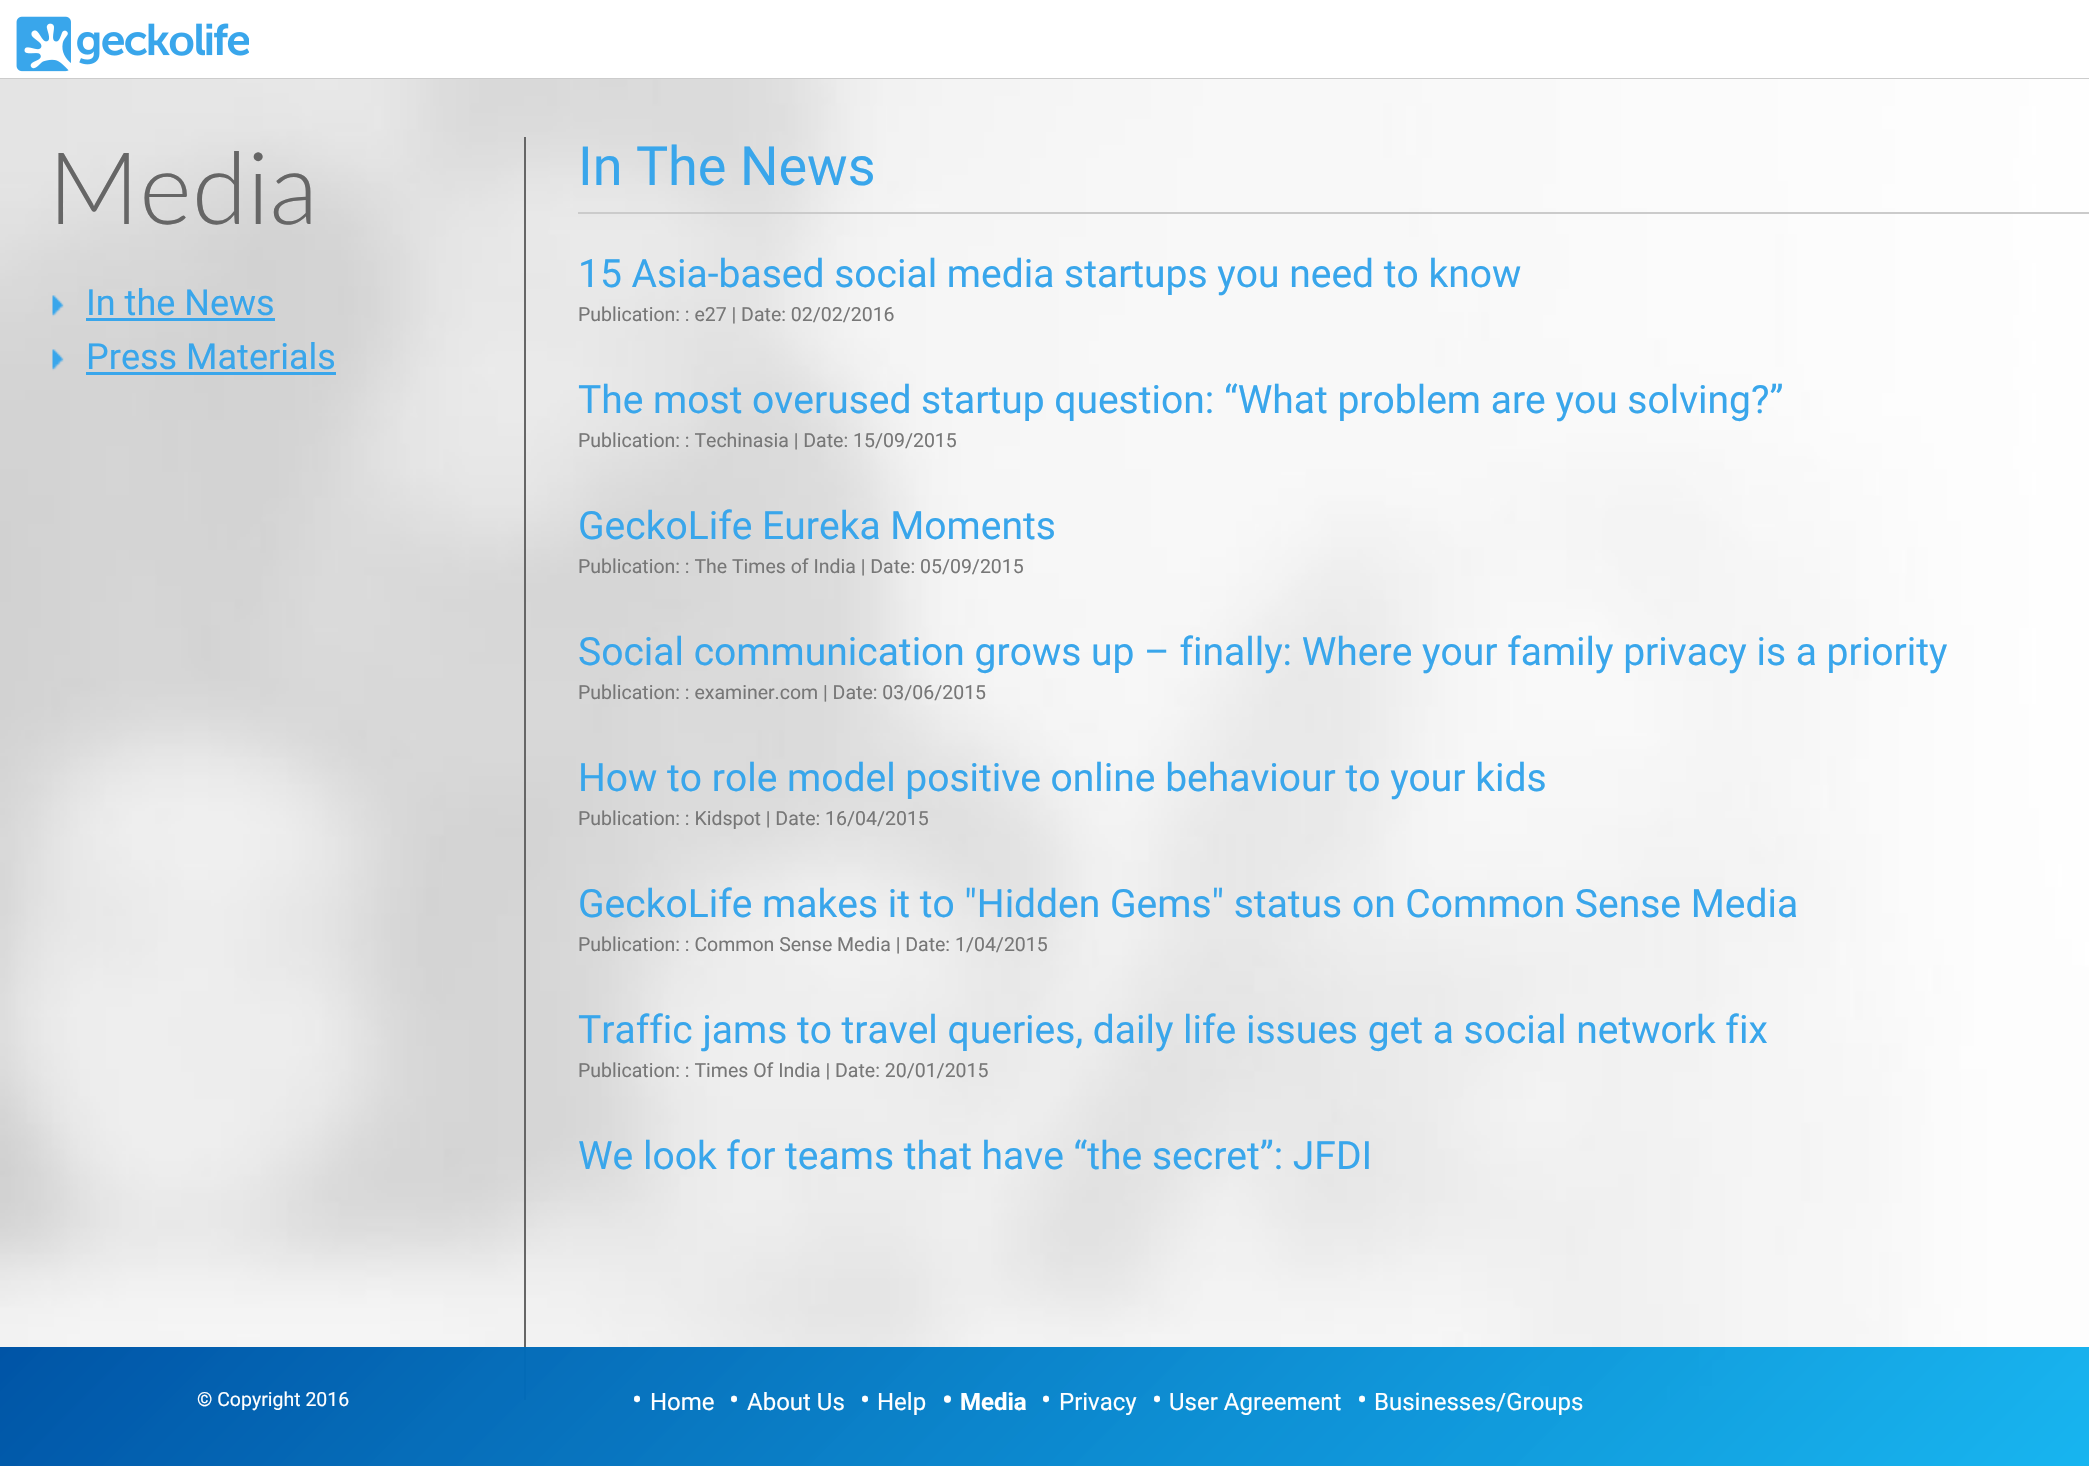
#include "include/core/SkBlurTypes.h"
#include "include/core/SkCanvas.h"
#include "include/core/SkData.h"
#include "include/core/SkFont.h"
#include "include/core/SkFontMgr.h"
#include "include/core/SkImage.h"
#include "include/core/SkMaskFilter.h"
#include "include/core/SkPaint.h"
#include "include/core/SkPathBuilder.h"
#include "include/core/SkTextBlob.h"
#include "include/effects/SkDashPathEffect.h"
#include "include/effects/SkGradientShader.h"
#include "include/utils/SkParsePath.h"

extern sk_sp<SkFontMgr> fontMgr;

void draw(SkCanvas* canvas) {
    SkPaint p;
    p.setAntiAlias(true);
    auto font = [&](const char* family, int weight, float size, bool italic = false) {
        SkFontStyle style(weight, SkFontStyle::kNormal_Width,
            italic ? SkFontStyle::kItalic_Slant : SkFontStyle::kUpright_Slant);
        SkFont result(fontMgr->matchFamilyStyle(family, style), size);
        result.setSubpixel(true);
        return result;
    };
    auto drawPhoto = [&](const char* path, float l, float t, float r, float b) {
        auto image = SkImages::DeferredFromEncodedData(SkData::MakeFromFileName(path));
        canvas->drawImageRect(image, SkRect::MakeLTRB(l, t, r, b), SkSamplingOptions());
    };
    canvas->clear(0xFFEBEFF1);
    p.setColor(0xFFFFFFFF);
    canvas->drawRect(SkRect::MakeLTRB(0, 0, 2089, 78), p);
    p.setColor(0xFFCCCCCC);
    canvas->drawRect(SkRect::MakeLTRB(0, 78, 2089, 79), p);
    drawPhoto("media/1.png", 16, 16, 249, 72);
    drawPhoto("media/2.png", 0, 79, 2089, 1400);
    p.setColor(0xFF666666);
    canvas->drawRect(SkRect::MakeLTRB(524, 137, 526, 1400), p);
    auto font1 = font("Lato", 300, 100.5f);
    canvas->drawString("Media", 48, 224, font1, p);
    drawPhoto("media/3.png", 52, 295, 64, 317);
    auto font2 = font("Roboto", 400, 36);
    p.setColor(0xFF39A6EB);
    canvas->drawString("In the News", 86, 315, font2, p);
    canvas->drawRect(SkRect::MakeLTRB(86, 318, 275, 321), p);
    drawPhoto("media/4.png", 52, 349, 64, 371);
    canvas->drawString("Press Materials", 86, 369, font2, p);
    canvas->drawRect(SkRect::MakeLTRB(86, 372, 336, 375), p);
    p.setColor(0xFFCBCBCB);
    canvas->drawRect(SkRect::MakeLTRB(578, 212, 2089, 214), p);
    auto font3 = font("Roboto", 400, 54);
    p.setColor(0xFF39A6EB);
    canvas->drawString("In The News", 578, 185, font3, p);
    auto font4 = font("Roboto", 400, 39);
    canvas->drawString("15 Asia-based social media startups you need to know", 578, 287, font4, p);
    auto font5 = font("Roboto", 400, 19.5f);
    p.setColor(0xFF777777);
    canvas->drawString("Publication: : e27 | Date: 02/02/2016", 578, 321, font5, p);
    p.setColor(0xFF39A6EB);
    canvas->drawString("The most overused startup question: “What problem are you solving?”", 578, 413, font4, p);
    p.setColor(0xFF777777);
    canvas->drawString("Publication: : Techinasia | Date: 15/09/2015", 578, 447, font5, p);
    p.setColor(0xFF39A6EB);
    canvas->drawString("GeckoLife Eureka Moments", 578, 539, font4, p);
    p.setColor(0xFF777777);
    canvas->drawString("Publication: : The Times of India | Date: 05/09/2015", 578, 573, font5, p);
    p.setColor(0xFF39A6EB);
    canvas->drawString("Social communication grows up – finally: Where your family privacy is a priority", 578, 665, font4, p);
    p.setColor(0xFF777777);
    canvas->drawString("Publication: : examiner.com | Date: 03/06/2015", 578, 699, font5, p);
    p.setColor(0xFF39A6EB);
    canvas->drawString("How to role model positive online behaviour to your kids", 578, 791, font4, p);
    p.setColor(0xFF777777);
    canvas->drawString("Publication: : Kidspot | Date: 16/04/2015", 578, 825, font5, p);
    p.setColor(0xFF39A6EB);
    canvas->drawString("GeckoLife makes it to \"Hidden Gems\" status on Common Sense Media", 578, 917, font4, p);
    p.setColor(0xFF777777);
    canvas->drawString("Publication: : Common Sense Media | Date: 1/04/2015", 578, 951, font5, p);
    p.setColor(0xFF39A6EB);
    canvas->drawString("Traffic jams to travel queries, daily life issues get a social network fix", 578, 1043, font4, p);
    p.setColor(0xFF777777);
    canvas->drawString("Publication: : Times Of India | Date: 20/01/2015", 578, 1077, font5, p);
    p.setColor(0xFF39A6EB);
    canvas->drawString("We look for teams that have “the secret”: JFDI", 578, 1169, font4, p);
    {
        const SkColor colors[] = {0xFF0054A6, 0xE600AEEF};
        const float stops[] = {0, 1};
        const SkPoint ends[] = {{492, 855}, {1597, 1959}};
        p.setShader(SkGradientShader::MakeLinear(ends, colors, stops, 2, SkTileMode::kClamp));
        p.setAlpha(255);
    }
    canvas->drawRect(SkRect::MakeLTRB(0, 1347, 2089, 1466), p);
    p.setShader(nullptr);
    p.setColor(0xFFFFFFFF);
    canvas->drawString("© Copyright 2016", 197, 1406, font5, p);
    auto font6 = font("Roboto", 400, 30);
    canvas->drawString("•", 632, 1410, font6, p);
    auto font7 = font("Roboto", 400, 24);
    canvas->drawString("Home", 650, 1410, font7, p);
    canvas->drawString("•", 729, 1410, font6, p);
    canvas->drawString("About Us", 747, 1410, font7, p);
    canvas->drawString("•", 860, 1410, font6, p);
    canvas->drawString("Help", 877, 1410, font7, p);
    auto font8 = font("Roboto", 700, 30);
    canvas->drawString("•", 942, 1410, font8, p);
    auto font9 = font("Roboto", 700, 24);
    canvas->drawString("Media", 960, 1410, font9, p);
    canvas->drawString("•", 1041, 1410, font6, p);
    canvas->drawString("Privacy", 1059, 1410, font7, p);
    canvas->drawString("•", 1152, 1410, font6, p);
    canvas->drawString("User Agreement", 1169, 1410, font7, p);
    canvas->drawString("•", 1357, 1410, font6, p);
    canvas->drawString("Businesses/Groups", 1374, 1410, font7, p);
}
